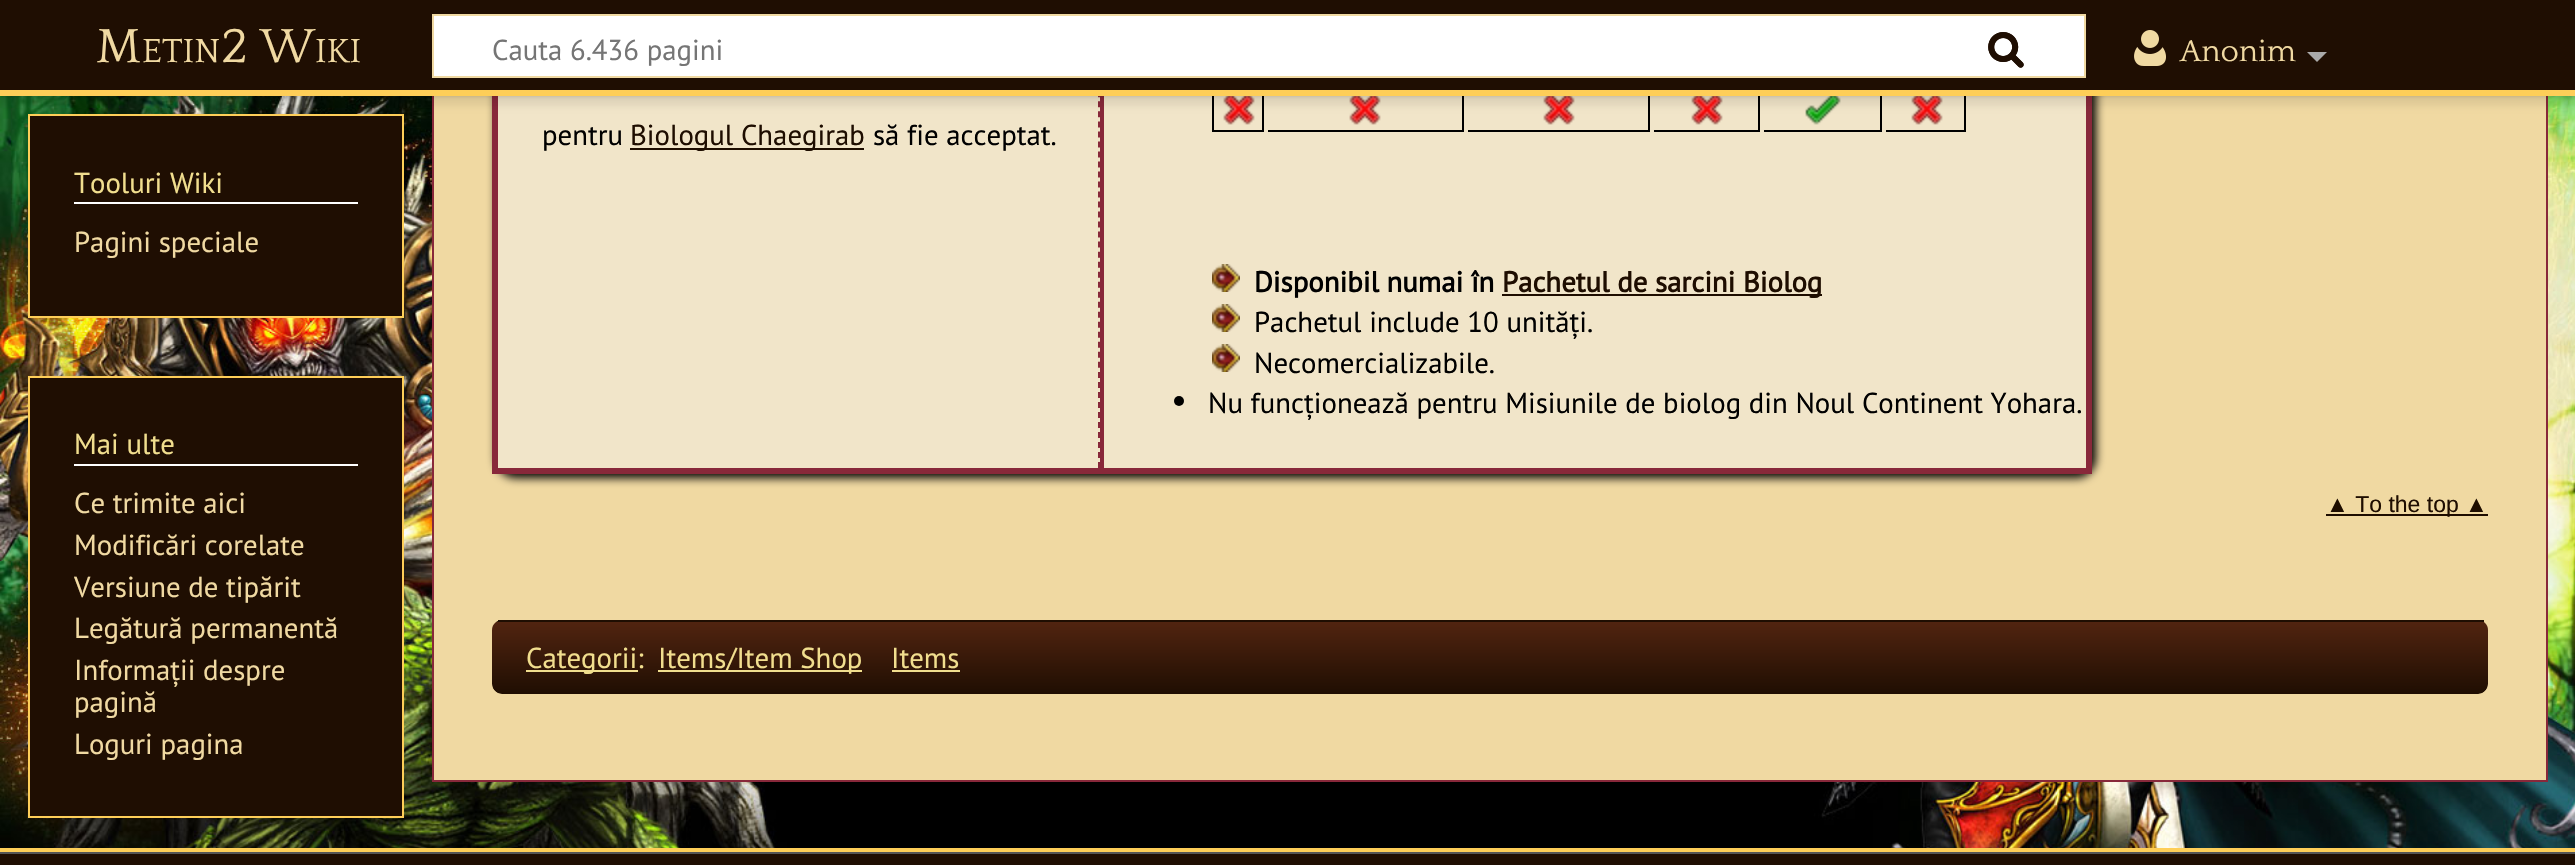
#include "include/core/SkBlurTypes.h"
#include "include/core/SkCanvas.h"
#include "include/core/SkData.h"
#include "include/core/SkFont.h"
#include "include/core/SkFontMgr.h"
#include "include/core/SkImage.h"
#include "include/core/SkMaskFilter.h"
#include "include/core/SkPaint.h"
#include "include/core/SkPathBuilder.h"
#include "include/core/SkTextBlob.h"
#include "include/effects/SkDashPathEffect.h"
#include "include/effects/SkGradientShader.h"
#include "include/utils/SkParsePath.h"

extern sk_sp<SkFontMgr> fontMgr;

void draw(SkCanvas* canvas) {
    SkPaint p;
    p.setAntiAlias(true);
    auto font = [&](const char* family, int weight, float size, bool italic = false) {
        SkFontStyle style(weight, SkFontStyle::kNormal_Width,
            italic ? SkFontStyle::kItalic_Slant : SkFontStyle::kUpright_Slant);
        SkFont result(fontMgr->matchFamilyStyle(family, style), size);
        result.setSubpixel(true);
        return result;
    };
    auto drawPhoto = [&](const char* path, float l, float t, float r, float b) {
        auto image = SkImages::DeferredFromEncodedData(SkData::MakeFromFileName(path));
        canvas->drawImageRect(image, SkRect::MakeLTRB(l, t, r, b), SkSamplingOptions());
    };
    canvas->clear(0xFFFFFFFF);
    drawPhoto("media/1.png", 0, 96, 2575, 848);
    p.setColor(0xFFF0D9A2);
    canvas->drawRect(SkRect::MakeLTRB(434, 96, 2546, 780), p);
    p.setStyle(SkPaint::kStroke_Style);
    p.setStrokeWidth(2);
    p.setColor(0xFF88283A);
    canvas->drawRect(SkRect::MakeLTRB(433, -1, 2547, 781), p);
    p.setStyle(SkPaint::kFill_Style);
    p.setColor(0xFF000000);
    p.setMaskFilter(SkMaskFilter::MakeBlur(kNormal_SkBlurStyle, 5));
    canvas->drawRoundRect(SkRect::MakeLTRB(496, -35, 2096, 478), 20, 20, p);
    p.setMaskFilter(nullptr);
    p.setColor(0xFF88283A);
    canvas->drawRect(SkRect::MakeLTRB(492, 96, 2092, 474), p);
    p.setColor(0xFFF1E5C9);
    canvas->drawRect(SkRect::MakeLTRB(498, 96, 1100, 468), p);
    p.setStyle(SkPaint::kStroke_Style);
    p.setColor(0xFF88283A);
    p.setPathEffect(SkDashPathEffect::Make({{6, 4.02f}}, 0));
    canvas->drawPath(SkPathBuilder().moveTo(1099, -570).lineTo(1099, 468).detach(), p);
    p.setPathEffect(nullptr);
    p.setStyle(SkPaint::kFill_Style);
    {
        const struct { float l, t, r, b; SkColor color; } items[] = {
            {1104, 96, 2086, 468, 0xFFF1E5C9},
            {1262, 96, 1264, 132, 0xFF000000},
            {1212, 130, 1264, 132, 0xFF000000},
            {1212, 96, 1214, 132, 0xFF000000},
        };
        for (auto [l, t, r, b, color] : items) {
            p.setColor(color);
            canvas->drawRect(SkRect::MakeLTRB(l, t, r, b), p);
        }
    }
    drawPhoto("media/5.png", 1223, 96, 1255, 125);
    canvas->drawRect(SkRect::MakeLTRB(1462, 96, 1464, 132), p);
    drawPhoto("media/5.png", 1349, 96, 1381, 125);
    canvas->drawRect(SkRect::MakeLTRB(1648, 96, 1650, 132), p);
    drawPhoto("media/5.png", 1543, 96, 1575, 125);
    canvas->drawRect(SkRect::MakeLTRB(1758, 96, 1760, 132), p);
    drawPhoto("media/5.png", 1691, 96, 1723, 125);
    canvas->drawRect(SkRect::MakeLTRB(1880, 96, 1882, 132), p);
    drawPhoto("media/6.png", 1805, 96, 1841, 125);
    canvas->drawRect(SkRect::MakeLTRB(1964, 96, 1966, 132), p);
    drawPhoto("media/5.png", 1911, 96, 1943, 125);
    p.setColor(0x33000000);
    p.setMaskFilter(SkMaskFilter::MakeBlur(kNormal_SkBlurStyle, 2));
    canvas->drawRect(SkRect::MakeLTRB(0, 90, 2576, 96), p);
    p.setMaskFilter(nullptr);
    p.setColor(0xFF1F0E02);
    canvas->drawRect(SkRect::MakeLTRB(29, 115, 403, 317), p);
    p.setStyle(SkPaint::kStroke_Style);
    p.setColor(0xFFFECE58);
    canvas->drawRect(SkRect::MakeLTRB(29, 115, 403, 317), p);
    p.setStyle(SkPaint::kFill_Style);
    p.setColor(0x12000000);
    p.setMaskFilter(SkMaskFilter::MakeBlur(kNormal_SkBlurStyle, 3));
    canvas->drawRect(SkRect::MakeLTRB(-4, 92, 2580, 106), p);
    p.setMaskFilter(nullptr);
    p.setColor(0xFF1F0E02);
    canvas->drawRect(SkRect::MakeLTRB(0, 0, 2575, 90), p);
    auto font1 = font("Quattrocento", 400, 50);
    p.setColor(0xFFF0D9A2);
    canvas->drawString("M", 96, 62, font1, p);
    auto font2 = font("Quattrocento", 400, 35);
    canvas->drawString("ETIN", 142, 62, font2, p);
    canvas->drawString("2 W", 221, 62, font1, p);
    canvas->drawString("IKI", 315, 62, font2, p);
    p.setColor(0xFFFFFFFF);
    canvas->drawRect(SkRect::MakeLTRB(433, 15, 2085, 77), p);
    p.setStyle(SkPaint::kStroke_Style);
    p.setColor(0xFFF0D9A2);
    canvas->drawRect(SkRect::MakeLTRB(433, 15, 2085, 77), p);
    drawPhoto("media/2.png", 1988, 32, 2024, 68);
    auto font3 = font("PT Sans", 400, 28.8f);
    p.setStyle(SkPaint::kFill_Style);
    p.setColor(0xFF757575);
    canvas->drawString("Cauta 6.436 pagini", 492, 60, font3, p);
    drawPhoto("media/3.png", 1988, 32, 2024, 68);
    drawPhoto("media/4.png", 2134, 30, 2166, 66);
    auto font4 = font("Quattrocento", 400, 31.5f);
    p.setColor(0xFFF0D9A2);
    canvas->drawString("Anonim", 2180, 61, font4, p);
    p.setColor(0xFFAAAAAA);
    canvas->drawPath(SkPathBuilder().moveTo(2327, 52).lineTo(2317, 62).lineTo(2307, 52).close().detach(), p);
    {
        const struct { float l, t, r, b; SkColor color; } items[] = {
            {0, 90, 2575, 96, 0xFFFECE58},
            {0, 848, 2575, 852, 0xFFFECE58},
            {74, 202, 358, 204, 0xFFFFFFFF},
        };
        for (auto [l, t, r, b, color] : items) {
            p.setColor(color);
            canvas->drawRect(SkRect::MakeLTRB(l, t, r, b), p);
        }
    }
    p.setColor(0xFFF1DE8E);
    canvas->drawString("Tooluri Wiki", 74, 193, font3, p);
    p.setColor(0xFFF0D9A2);
    canvas->drawString("Pagini speciale", 74, 252, font3, p);
    p.setColor(0xFF000000);
    canvas->drawString("pentru", 542, 145, font3, p);
    p.setColor(0xFF1E0D00);
    canvas->drawRect(SkRect::MakeLTRB(630, 148, 864, 150), p);
    canvas->drawString("Biologul Chaegirab", 630, 145, font3, p);
    p.setColor(0xFF000000);
    canvas->drawString("să fie acceptat.", 873, 145, font3, p);
    {
        const struct { float l, t, r, b; SkColor color; } items[] = {
            {1268, 130, 1464, 132, 0xFF000000},
            {1468, 130, 1650, 132, 0xFF000000},
            {1654, 130, 1760, 132, 0xFF000000},
            {1764, 130, 1882, 132, 0xFF000000},
            {1886, 130, 1966, 132, 0xFF000000},
        };
        for (auto [l, t, r, b, color] : items) {
            p.setColor(color);
            canvas->drawRect(SkRect::MakeLTRB(l, t, r, b), p);
        }
    }
    drawPhoto("media/7.png", 1212, 264, 1240, 292);
    auto font5 = font("PT Sans", 700, 28.8f);
    canvas->drawString("Disponibil numai în", 1254, 292, font5, p);
    p.setColor(0xFF1E0D00);
    canvas->drawRect(SkRect::MakeLTRB(1502, 294, 1822, 296), p);
    canvas->drawString("Pachetul de sarcini Biolog", 1502, 292, font5, p);
    drawPhoto("media/7.png", 1212, 304, 1240, 332);
    p.setColor(0xFF000000);
    canvas->drawString("Pachetul include 10 unități.", 1254, 332, font3, p);
    drawPhoto("media/7.png", 1212, 344, 1240, 372);
    canvas->drawString("Necomercializabile.", 1254, 373, font3, p);
    canvas->drawCircle(1179, 401, 5, p);
    canvas->drawString("Nu funcționează pentru Misiunile de biolog din Noul Continent Yohara.", 1208, 413, font3, p);
    p.setColor(0xFF1E0D00);
    canvas->drawRect(SkRect::MakeLTRB(2326, 514, 2488, 516), p);
    auto font6 = font("Liberation Sans", 400, 23);
    canvas->drawString("▲ To the top ▲", 2326, 512, font6, p);
    canvas->save();
    canvas->clipPath(SkPathBuilder().moveTo(502, 620).lineTo(2478, 620).cubicTo(2483.5f, 620, 2488, 624.5f, 2488, 630).lineTo(2488, 684).cubicTo(2488, 689.5f, 2483.5f, 694, 2478, 694).lineTo(502, 694).cubicTo(496.5f, 694, 492, 689.5f, 492, 684).lineTo(492, 630).cubicTo(492, 624.5f, 496.5f, 620, 502, 620).close().detach(), true);
    {
        const SkColor colors[] = {0xFF512410, 0xFF1F0E02};
        const float stops[] = {0, 1};
        const SkPoint ends[] = {{492, 550}, {492, 622}};
        p.setShader(SkGradientShader::MakeLinear(ends, colors, stops, 2, SkTileMode::kClamp));
        p.setAlpha(255);
    }
    canvas->drawRect(SkRect::MakeLTRB(492, 620, 498, 622), p);
    {
        const SkColor colors[] = {0xFF512410, 0xFF1F0E02};
        const float stops[] = {0, 1};
        const SkPoint ends[] = {{492, 622}, {492, 694}};
        p.setShader(SkGradientShader::MakeLinear(ends, colors, stops, 2, SkTileMode::kClamp));
        p.setAlpha(255);
    }
    canvas->drawPath(SkPathBuilder().moveTo(492, 622).lineTo(2488, 622).lineTo(2488, 684).cubicTo(2488, 689.5f, 2483.5f, 694, 2478, 694).lineTo(502, 694).cubicTo(496.5f, 694, 492, 689.5f, 492, 684).close().detach(), p);
    canvas->restore();
    p.setShader(nullptr);
    p.setColor(0xFF1F0E02);
    canvas->drawRect(SkRect::MakeLTRB(498, 620, 2484, 622), p);
    p.setColor(0xFFF1DE8E);
    canvas->drawRect(SkRect::MakeLTRB(526, 670, 638, 672), p);
    canvas->drawString("Categorii:", 526, 668, font3, p);
    canvas->drawRect(SkRect::MakeLTRB(658, 670, 862, 672), p);
    canvas->drawString("Items/Item Shop", 658, 668, font3, p);
    canvas->drawString("Items", 891, 668, font3, p);
    canvas->drawRect(SkRect::MakeLTRB(892, 670, 960, 672), p);
    p.setColor(0xFF1F0E02);
    canvas->drawRect(SkRect::MakeLTRB(29, 377, 403, 817), p);
    p.setStyle(SkPaint::kStroke_Style);
    p.setColor(0xFFFECE58);
    canvas->drawRect(SkRect::MakeLTRB(29, 377, 403, 817), p);
    p.setStyle(SkPaint::kFill_Style);
    p.setColor(0xFFFFFFFF);
    canvas->drawRect(SkRect::MakeLTRB(74, 464, 358, 466), p);
    p.setColor(0xFFF1DE8E);
    canvas->drawString("Mai ulte", 74, 454, font3, p);
    p.setColor(0xFFF0D9A2);
    {
        const struct { const char* s; float x, y; } items[] = {
            {"Ce trimite aici", 74, 513},
            {"Modificări corelate", 74, 555},
            {"Versiune de tipărit", 74, 597},
            {"Legătură permanentă", 74, 638},
            {"Informații despre", 74, 680},
            {"pagină", 74, 712},
            {"Loguri pagina", 74, 754},
        };
        for (auto [s, x, y] : items) {
            canvas->drawString(s, x, y, font3, p);
        }
    }
    p.setColor(0xFF1F0E02);
    canvas->drawRect(SkRect::MakeLTRB(0, 854, 2575, 865), p);
    p.setColor(0xFF555555);
    canvas->drawRect(SkRect::MakeLTRB(0, 852, 2575, 854), p);
}
